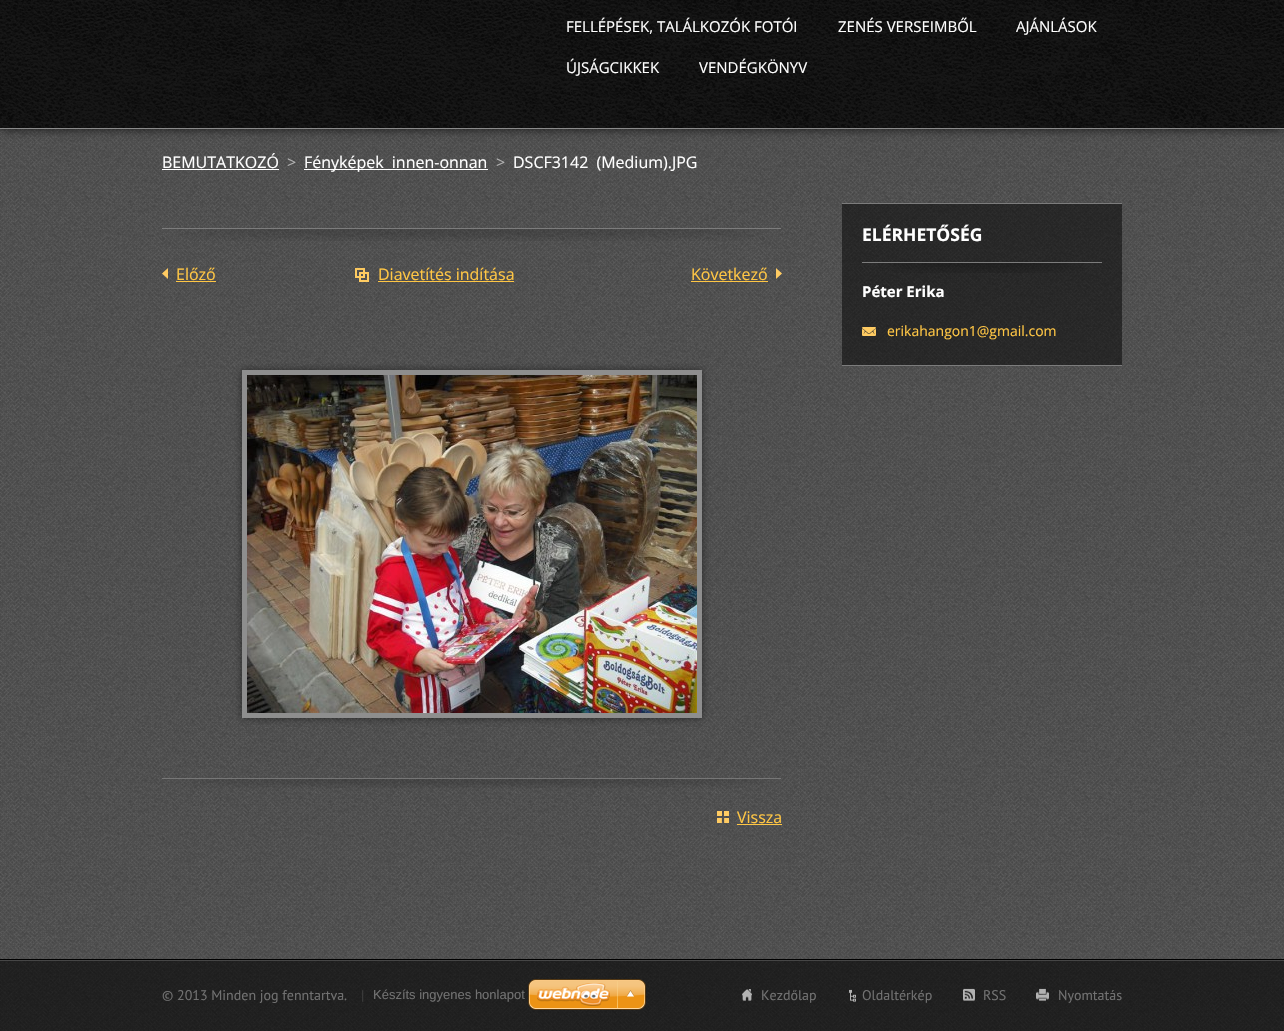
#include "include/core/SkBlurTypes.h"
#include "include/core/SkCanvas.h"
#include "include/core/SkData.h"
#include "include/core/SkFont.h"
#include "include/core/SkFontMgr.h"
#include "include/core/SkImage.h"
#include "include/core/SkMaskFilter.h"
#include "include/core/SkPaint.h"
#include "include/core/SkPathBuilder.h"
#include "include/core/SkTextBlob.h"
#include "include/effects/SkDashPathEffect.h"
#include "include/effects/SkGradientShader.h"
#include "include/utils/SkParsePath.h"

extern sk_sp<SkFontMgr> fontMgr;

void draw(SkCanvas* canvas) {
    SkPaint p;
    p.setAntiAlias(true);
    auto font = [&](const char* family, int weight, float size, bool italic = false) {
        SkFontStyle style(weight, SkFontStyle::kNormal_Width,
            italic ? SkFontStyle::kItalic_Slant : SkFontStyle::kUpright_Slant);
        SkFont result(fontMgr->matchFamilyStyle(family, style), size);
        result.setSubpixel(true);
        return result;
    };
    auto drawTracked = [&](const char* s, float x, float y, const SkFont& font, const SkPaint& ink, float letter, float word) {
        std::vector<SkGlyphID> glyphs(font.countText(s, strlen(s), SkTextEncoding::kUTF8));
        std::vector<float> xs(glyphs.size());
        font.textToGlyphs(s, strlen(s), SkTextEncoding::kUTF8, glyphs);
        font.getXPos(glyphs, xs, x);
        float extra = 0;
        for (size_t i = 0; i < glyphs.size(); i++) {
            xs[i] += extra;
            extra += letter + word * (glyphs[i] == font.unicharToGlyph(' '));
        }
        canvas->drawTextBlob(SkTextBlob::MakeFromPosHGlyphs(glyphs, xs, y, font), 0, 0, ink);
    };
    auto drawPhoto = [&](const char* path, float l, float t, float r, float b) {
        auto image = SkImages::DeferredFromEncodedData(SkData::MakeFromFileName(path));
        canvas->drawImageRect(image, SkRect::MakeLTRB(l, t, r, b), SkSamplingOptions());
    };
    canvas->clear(0xFFFFFFFF);
    drawPhoto("media/1.png", 0, 129, 1284, 1031);
    p.setColor(0xB3000000);
    p.setMaskFilter(SkMaskFilter::MakeBlur(kNormal_SkBlurStyle, 5));
    canvas->drawRect(SkRect::MakeLTRB(0, -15, 1284, 129), p);
    p.setMaskFilter(nullptr);
    drawPhoto("media/2.png", 0, 0, 1284, 128);
    p.setColor(0xFF8A8A8A);
    canvas->drawRect(SkRect::MakeLTRB(0, 128, 1284, 129), p);
    auto font1 = font("Open Sans", 400, 15);
    p.setColor(0xFFFFFFFF);
    {
        const struct { const char* s; float x, y; } items[] = {
            {"FELLÉPÉSEK, TALÁLKOZÓK FOTÓI", 566, 32},
            {"ZENÉS VERSEIMBŐL", 838, 32},
            {"AJÁNLÁSOK", 1016, 32},
            {"ÚJSÁGCIKKEK", 566, 73},
            {"VENDÉGKÖNYV", 699, 73},
        };
        for (auto [s, x, y] : items) {
            canvas->drawString(s, x, y, font1, p);
        }
    }
    auto font2 = font("Open Sans", 400, 16);
    canvas->drawString("BEMUTATKOZÓ", 162, 168, font2, p);
    canvas->drawRect(SkRect::MakeLTRB(162, 169, 279, 170), p);
    p.setColor(0xFFB3B3B3);
    canvas->drawString(">", 287, 168, font2, p);
    p.setColor(0xFFFFFFFF);
    canvas->drawRect(SkRect::MakeLTRB(304, 169, 488, 170), p);
    drawTracked("Fényképek innen-onnan", 304, 168, font2, p, 0, 4);
    p.setColor(0xFFB3B3B3);
    canvas->drawString(">", 496, 168, font2, p);
    p.setColor(0xFFFFFFFF);
    drawTracked("DSCF3142 (Medium).JPG", 513, 168, font2, p, 0, 4);
    drawPhoto("media/3.png", 162, 228, 781, 241);
    drawPhoto("media/4.png", 162, 268, 168, 279);
    p.setColor(0xFFFFC644);
    canvas->drawString("Előző", 176, 280, font2, p);
    canvas->drawRect(SkRect::MakeLTRB(176, 281, 216, 282), p);
    drawPhoto("media/5.png", 355, 268, 369, 282);
    canvas->drawString("Diavetítés indítása", 378, 280, font2, p);
    canvas->drawRect(SkRect::MakeLTRB(378, 281, 514, 282), p);
    drawPhoto("media/6.png", 776, 268, 782, 279);
    canvas->drawString("Következő", 691, 280, font2, p);
    canvas->drawRect(SkRect::MakeLTRB(691, 281, 768, 282), p);
    drawPhoto("media/7.png", 162, 778, 781, 788);
    p.setColor(0x80000000);
    p.setMaskFilter(SkMaskFilter::MakeBlur(kNormal_SkBlurStyle, 4));
    canvas->drawRect(SkRect::MakeLTRB(242, 370, 702, 718), p);
    p.setMaskFilter(nullptr);
    p.setStyle(SkPaint::kStroke_Style);
    p.setStrokeWidth(5);
    p.setColor(0xFF8E8E8E);
    canvas->drawRect(SkRect::MakeLTRB(244.5f, 372.5f, 699.5f, 715.5f), p);
    drawPhoto("media/8.png", 247, 375, 697, 713);
    drawPhoto("media/9.png", 717, 811, 729, 823);
    p.setStyle(SkPaint::kFill_Style);
    p.setColor(0xFFFFC644);
    canvas->drawString("Vissza", 737, 823, font2, p);
    {
        const struct { float l, t, r, b; SkColor color; } items[] = {
            {737, 824, 782, 825, 0xFFFFC644},
            {842, 204, 1122, 365, 0x80000000},
            {842, 203, 1122, 204, 0xFF7C7C7C},
            {842, 365, 1122, 366, 0xFF7C7C7C},
        };
        for (auto [l, t, r, b, color] : items) {
            p.setColor(color);
            canvas->drawRect(SkRect::MakeLTRB(l, t, r, b), p);
        }
    }
    drawPhoto("media/10.png", 862, 262, 1102, 273);
    auto font3 = font("Open Sans", 700, 17.5f);
    p.setColor(0xFFFFFFFF);
    canvas->drawString("ELÉRHETŐSÉG", 862, 241, font3, p);
    auto font4 = font("Open Sans", 700, 15);
    canvas->drawString("Péter Erika", 862, 297, font4, p);
    drawPhoto("media/11.png", 862, 327, 876, 336);
    auto font5 = font("Open Sans", 400, 14);
    p.setColor(0xFFFFC644);
    canvas->drawString("erikahangon1@gmail.com", 887, 336, font5, p);
    {
        const struct { float l, t, r, b; SkColor color; } items[] = {
            {0, 959, 1284, 960, 0xFF000000},
            {0, 961, 1284, 1031, 0x99000000},
            {0, 960, 1284, 961, 0xFF464646},
        };
        for (auto [l, t, r, b, color] : items) {
            p.setColor(color);
            canvas->drawRect(SkRect::MakeLTRB(l, t, r, b), p);
        }
    }
    auto font6 = font("PT Sans", 400, 14);
    p.setColor(0xFF717171);
    canvas->drawString("© 2013 Minden jog fenntartva.", 162, 1000, font6, p);
    p.setColor(0xFF3C3C3C);
    canvas->drawString("|", 361, 1000, font6, p);
    drawPhoto("media/12.png", 742, 989, 752, 1001);
    p.setColor(0xFF717171);
    canvas->drawString("Kezdőlap", 761, 1000, font6, p);
    drawPhoto("media/13.png", 849, 989, 856, 1002);
    canvas->drawString("Oldaltérkép", 862, 1000, font6, p);
    drawPhoto("media/14.png", 963, 988, 975, 1001);
    canvas->drawString("RSS", 983, 1000, font6, p);
    drawPhoto("media/15.png", 1036, 988, 1049, 1001);
    canvas->drawString("Nyomtatás", 1058, 1000, font6, p);
    auto font7 = font("Liberation Sans", 400, 13);
    canvas->drawString("Készíts ingyenes honlapot", 373, 999, font7, p);
    drawPhoto("media/16.png", 528, 979, 646, 1010);
}
